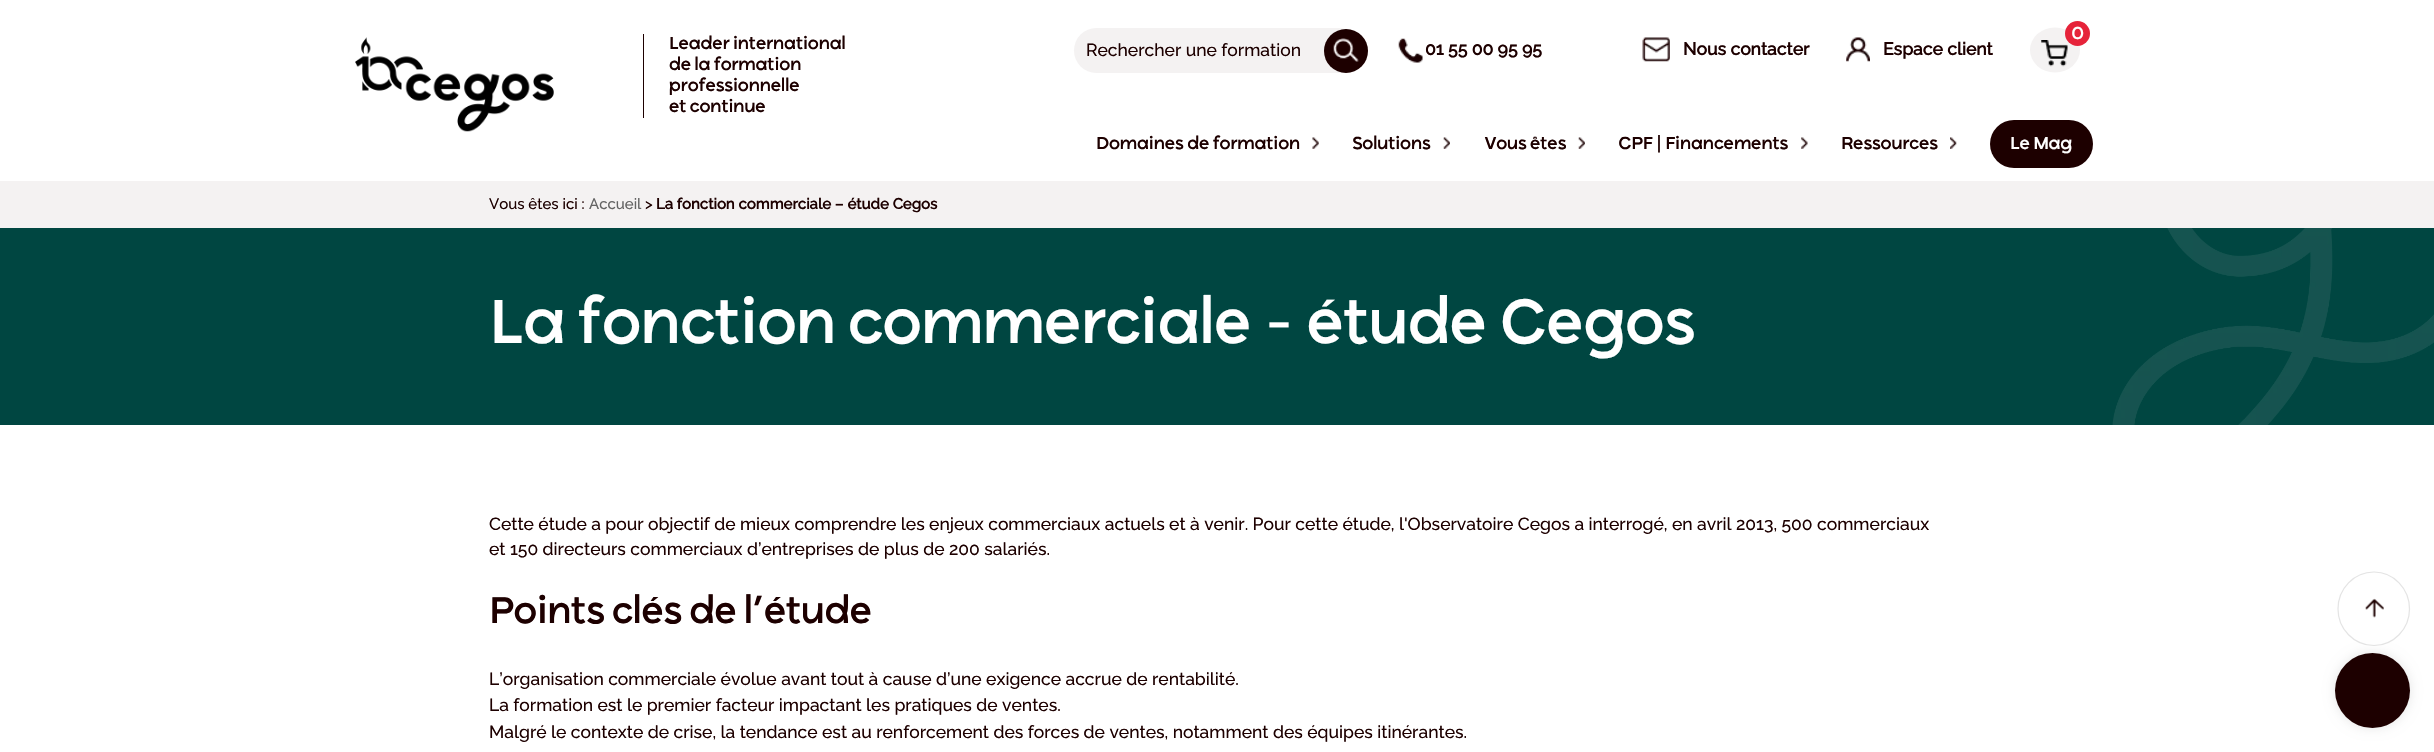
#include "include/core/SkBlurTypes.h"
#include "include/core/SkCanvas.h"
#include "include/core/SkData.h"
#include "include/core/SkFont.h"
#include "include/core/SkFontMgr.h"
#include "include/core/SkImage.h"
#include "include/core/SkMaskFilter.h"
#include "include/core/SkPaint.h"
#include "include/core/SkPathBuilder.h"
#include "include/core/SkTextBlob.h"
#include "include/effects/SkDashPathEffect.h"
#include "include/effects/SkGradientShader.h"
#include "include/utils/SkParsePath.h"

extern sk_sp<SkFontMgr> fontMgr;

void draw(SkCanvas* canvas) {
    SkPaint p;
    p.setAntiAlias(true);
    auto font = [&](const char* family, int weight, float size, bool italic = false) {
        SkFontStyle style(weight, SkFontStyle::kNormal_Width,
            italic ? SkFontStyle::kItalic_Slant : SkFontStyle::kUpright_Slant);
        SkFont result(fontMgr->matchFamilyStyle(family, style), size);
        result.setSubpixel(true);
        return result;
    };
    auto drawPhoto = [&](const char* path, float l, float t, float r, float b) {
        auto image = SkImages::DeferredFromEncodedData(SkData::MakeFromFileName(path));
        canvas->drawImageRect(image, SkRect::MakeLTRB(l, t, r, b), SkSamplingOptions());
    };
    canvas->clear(0xFFFFFFFF);
    drawPhoto("media/1.png", 355, 37, 554, 132);
    p.setColor(0xFF1D0000);
    canvas->drawRect(SkRect::MakeLTRB(643, 34, 644, 118), p);
    auto font1 = font("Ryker", 500, 17.5f);
    {
        const struct { const char* s; float x, y; } items[] = {
            {"Leader international", 669, 49},
            {"de la formation", 669, 70},
            {"professionnelle", 669, 91},
            {"et continue", 669, 112},
        };
        for (auto [s, x, y] : items) {
            canvas->drawString(s, x, y, font1, p);
        }
    }
    p.setColor(0xFFF4F2F2);
    canvas->drawOval(SkRect::MakeLTRB(2030, 27.5f, 2080, 72.5f), p);
    drawPhoto("media/2.png", 2041, 40, 2068, 67);
    p.setColor(0xFFE6233A);
    canvas->drawCircle(2077.5f, 33.5f, 12.5f, p);
    p.setColor(0xFFFFFFFF);
    canvas->drawString("0", 2071, 39, font1, p);
    p.setColor(0xFFF4F2F2);
    canvas->drawRoundRect(SkRect::MakeLTRB(1074, 28, 1361, 73), 22.5f, 22.5f, p);
    auto font2 = font("Raleway", 500, 17.5f);
    p.setColor(0xFF1D0000);
    canvas->drawString("Rechercher une formation", 1086, 56, font2, p);
    canvas->drawCircle(1346, 51, 22, p);
    drawPhoto("media/3.png", 1333, 38, 1359, 62);
    drawPhoto("media/4.png", 1398, 38, 1423, 63);
    auto font3 = font("Raleway", 700, 17.5f);
    canvas->drawString("01 55 00 95 95", 1425, 55, font3, p);
    drawPhoto("media/5.png", 1642, 37, 1670, 62);
    canvas->drawString("Nous contacter", 1683, 55, font3, p);
    drawPhoto("media/6.png", 1846, 37, 1870, 62);
    canvas->drawString("Espace client", 1883, 55, font3, p);
    canvas->drawString("Domaines de formation", 1096, 149, font1, p);
    drawPhoto("media/7.png", 1312, 137, 1319, 149);
    canvas->drawString("Solutions", 1352, 149, font1, p);
    drawPhoto("media/8.png", 1443, 137, 1450, 149);
    canvas->drawString("Vous êtes", 1484, 149, font1, p);
    drawPhoto("media/8.png", 1578, 137, 1585, 149);
    canvas->drawString("CPF | Financements", 1618, 149, font1, p);
    drawPhoto("media/9.png", 1801, 137, 1808, 149);
    canvas->drawString("Ressources", 1841, 149, font1, p);
    drawPhoto("media/10.png", 1950, 137, 1957, 149);
    canvas->drawRoundRect(SkRect::MakeLTRB(1990, 120, 2093, 168), 24, 24, p);
    p.setColor(0xFFFFFFFF);
    canvas->drawString("Le Mag", 2010, 149, font1, p);
    p.setColor(0xFFF4F2F2);
    canvas->drawRect(SkRect::MakeLTRB(0, 181, 2434, 228), p);
    auto font4 = font("Raleway", 500, 15);
    p.setColor(0xFF1D0000);
    canvas->drawString("Vous êtes ici :", 489, 209, font4, p);
    p.setColor(0xFF646464);
    canvas->drawString("Accueil", 589, 209, font4, p);
    p.setColor(0xFF1D0000);
    canvas->drawString(">", 645, 209, font4, p);
    auto font5 = font("Raleway", 700, 15);
    canvas->drawString("La fonction commerciale – étude Cegos", 656, 209, font5, p);
    p.setColor(0xFF004641);
    canvas->drawRect(SkRect::MakeLTRB(0, 228, 2434, 425), p);
    drawPhoto("media/11.png", 2112, 228, 2434, 425);
    auto font6 = font("Ryker", 500, 62.5f);
    p.setColor(0xFFFFFFFF);
    canvas->drawString("La fonction commerciale – étude Cegos", 489, 343, font6, p);
    p.setColor(0xFF1D0000);
    canvas->drawString("Cette étude a pour objectif de mieux comprendre les enjeux commerciaux actuels et à venir. Pour cette étude, l'Observatoire Cegos a interrogé, en avril 2013, 500 commerciaux", 489, 530, font2, p);
    canvas->drawString("et 150 directeurs commerciaux d’entreprises de plus de 200 salariés.", 489, 555, font2, p);
    auto font7 = font("Ryker", 500, 37.5f);
    canvas->drawString("Points clés de l’étude", 489, 623, font7, p);
    {
        const struct { const char* s; float x, y; } items[] = {
            {"L’organisation commerciale évolue avant tout à cause d’une exigence accrue de rentabilité.", 489, 685},
            {"La formation est le premier facteur impactant les pratiques de ventes.", 489, 711},
            {"Malgré le contexte de crise, la tendance est au renforcement des forces de ventes, notamment des équipes itinérantes.", 489, 738},
        };
        for (auto [s, x, y] : items) {
            canvas->drawString(s, x, y, font2, p);
        }
    }
    p.setStyle(SkPaint::kStroke_Style);
    p.setStrokeWidth(1.2f);
    p.setColor(0xFFE4E4E4);
    canvas->drawPath(SkPathBuilder().moveTo(2374, 572).cubicTo(2393.5f, 572, 2409.5f, 588.5f, 2409.5f, 609).cubicTo(2409.5f, 629, 2393.5f, 645.5f, 2374, 645.5f).cubicTo(2354, 645.5f, 2338, 629, 2338, 609).cubicTo(2338, 588.5f, 2354, 572, 2374, 572).close().detach(), p);
    drawPhoto("media/12.png", 2365, 598, 2384, 618);
    p.setStyle(SkPaint::kFill_Style);
    p.setColor(0x1A000000);
    p.setMaskFilter(SkMaskFilter::MakeBlur(kNormal_SkBlurStyle, 6));
    canvas->drawRoundRect(SkRect::MakeLTRB(2335, 653, 2410, 728), 37.5f, 37.5f, p);
    p.setMaskFilter(nullptr);
    p.setColor(0xFF1D0000);
    canvas->drawCircle(2372.5f, 690.5f, 37.5f, p);
}
